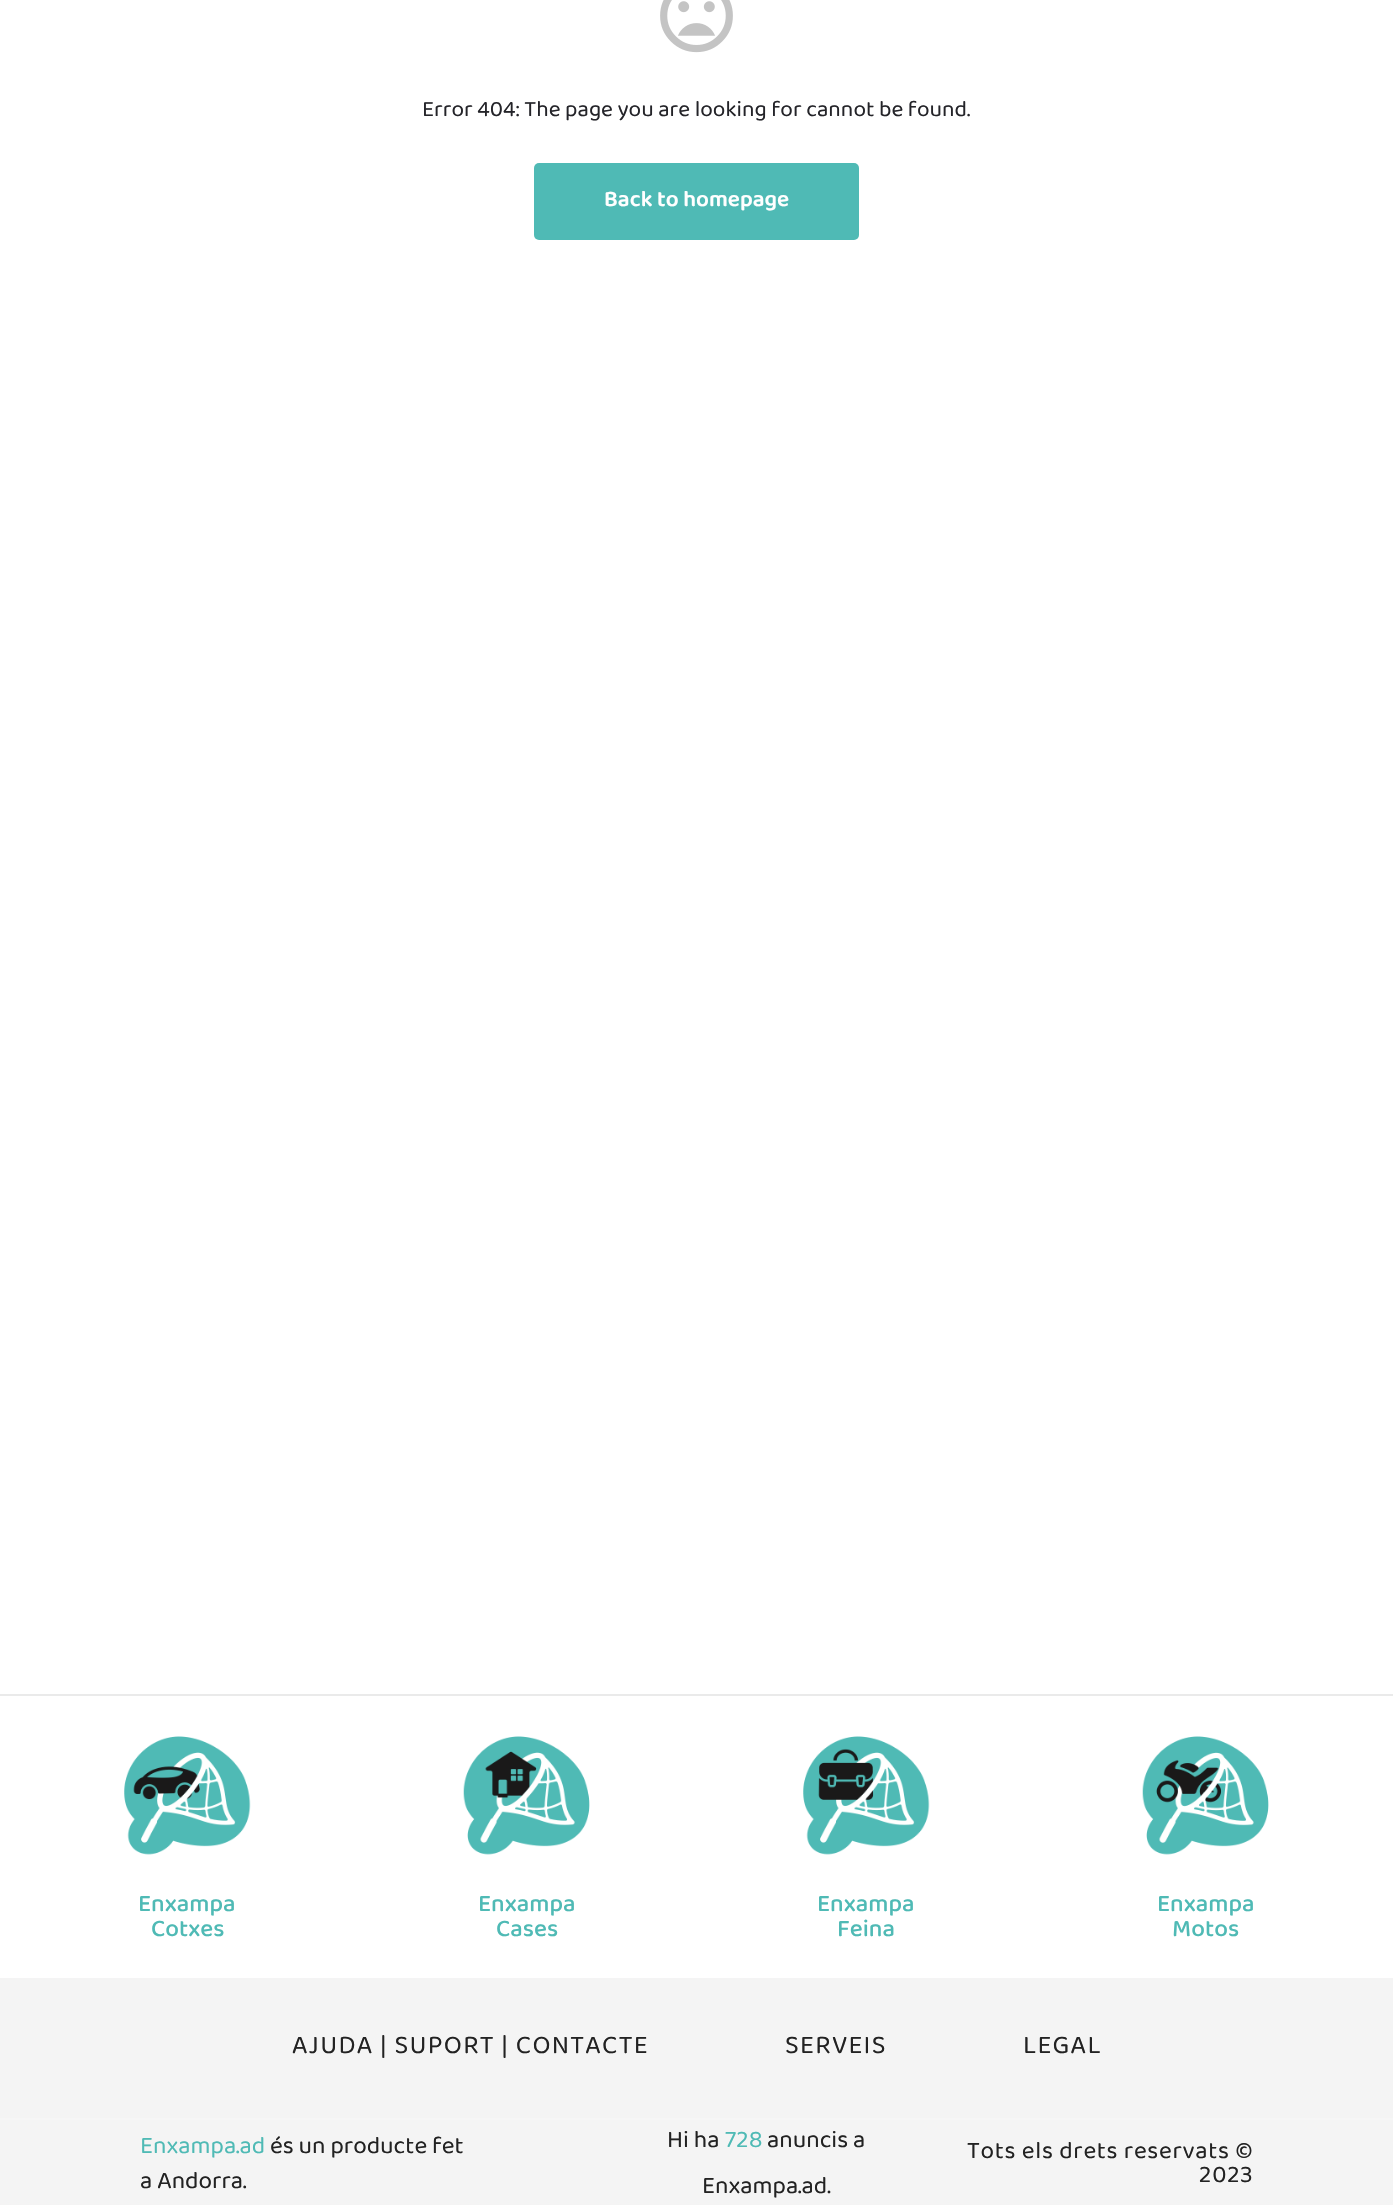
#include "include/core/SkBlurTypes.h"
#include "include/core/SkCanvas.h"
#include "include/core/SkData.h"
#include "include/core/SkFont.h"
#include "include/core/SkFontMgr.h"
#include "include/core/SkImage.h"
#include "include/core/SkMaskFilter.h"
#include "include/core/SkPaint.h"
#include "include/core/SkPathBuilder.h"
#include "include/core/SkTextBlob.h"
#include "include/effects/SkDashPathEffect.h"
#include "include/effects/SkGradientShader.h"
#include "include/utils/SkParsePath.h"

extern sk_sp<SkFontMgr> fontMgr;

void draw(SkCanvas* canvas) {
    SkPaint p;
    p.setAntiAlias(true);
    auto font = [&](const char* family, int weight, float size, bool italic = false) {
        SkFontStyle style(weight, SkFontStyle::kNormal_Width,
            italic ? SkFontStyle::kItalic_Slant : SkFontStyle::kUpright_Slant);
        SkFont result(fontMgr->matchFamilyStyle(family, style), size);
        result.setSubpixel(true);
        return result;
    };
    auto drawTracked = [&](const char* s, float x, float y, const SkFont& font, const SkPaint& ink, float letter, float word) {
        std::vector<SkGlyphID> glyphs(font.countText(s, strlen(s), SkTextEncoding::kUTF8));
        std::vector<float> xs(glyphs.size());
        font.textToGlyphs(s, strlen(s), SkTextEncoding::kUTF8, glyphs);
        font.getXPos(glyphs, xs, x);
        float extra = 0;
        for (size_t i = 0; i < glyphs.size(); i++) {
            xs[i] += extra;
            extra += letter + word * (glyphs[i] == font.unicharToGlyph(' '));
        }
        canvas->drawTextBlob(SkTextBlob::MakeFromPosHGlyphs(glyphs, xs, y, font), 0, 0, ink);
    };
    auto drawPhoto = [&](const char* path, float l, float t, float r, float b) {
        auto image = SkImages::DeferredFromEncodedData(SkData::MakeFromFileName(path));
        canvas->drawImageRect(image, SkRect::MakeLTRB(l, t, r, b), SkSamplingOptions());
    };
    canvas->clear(0xFFFFFFFF);
    p.setColor(0xFFEAEAEA);
    canvas->drawRect(SkRect::MakeLTRB(0, 1694, 1393, 1696), p);
    drawPhoto("media/1.png", 660, 0, 733, 53);
    auto font1 = font("Baloo Da 2", 400, 22.75f);
    p.setColor(0xFF242429);
    canvas->drawString("Error 404: The page you are looking for cannot be found.", 422, 116, font1, p);
    p.setColor(0xFF4FBAB5);
    canvas->drawRoundRect(SkRect::MakeLTRB(534, 163, 859, 240), 5, 5, p);
    auto font2 = font("Baloo Da 2", 600, 22.75f);
    p.setColor(0xFFFFFFFF);
    canvas->drawString("Back to homepage", 604, 206, font2, p);
    drawPhoto("media/2.png", 124, 1736, 251, 1855);
    auto font3 = font("Baloo Da 2", 500, 24.5f);
    p.setColor(0xFF4FBAB5);
    canvas->drawString("Enxampa", 138, 1911, font3, p);
    canvas->drawString("Cotxes", 151, 1936, font3, p);
    drawPhoto("media/3.png", 463, 1736, 590, 1855);
    canvas->drawString("Enxampa", 478, 1911, font3, p);
    canvas->drawString("Cases", 496, 1936, font3, p);
    drawPhoto("media/4.png", 803, 1736, 930, 1855);
    canvas->drawString("Enxampa", 817, 1911, font3, p);
    canvas->drawString("Feina", 837, 1936, font3, p);
    drawPhoto("media/5.png", 1142, 1736, 1269, 1855);
    canvas->drawString("Enxampa", 1157, 1911, font3, p);
    canvas->drawString("Motos", 1172, 1936, font3, p);
    p.setColor(0xFFF4F4F4);
    canvas->drawRect(SkRect::MakeLTRB(0, 1978, 1393, 2118), p);
    auto font4 = font("Baloo Da 2", 400, 26.25f);
    p.setColor(0xFF222222);
    {
        const struct { const char* s; float x, y; } items[] = {
            {"AJUDA | SUPORT | CONTACTE", 292, 2053},
            {"SERVEIS", 785, 2053},
            {"LEGAL", 1023, 2053},
        };
        for (auto [s, x, y] : items) {
            drawTracked(s, x, y, font4, p, 1.25f, 0);
        }
    }
    p.setColor(0xFFF4F4F4);
    canvas->drawRect(SkRect::MakeLTRB(0, 2120, 1393, 2205), p);
    p.setColor(0xFFF6F6F6);
    canvas->drawRect(SkRect::MakeLTRB(0, 2118, 1393, 2120), p);
    auto font5 = font("Baloo Da 2", 400, 24.5f);
    p.setColor(0xFF4FBAB5);
    canvas->drawString("Enxampa.ad", 140, 2153, font5, p);
    p.setColor(0xFF222222);
    {
        const struct { const char* s; float x, y; } items[] = {
            {"és un producte fet", 270, 2153},
            {"a Andorra.", 140, 2188},
            {"Hi ha", 667, 2147},
        };
        for (auto [s, x, y] : items) {
            canvas->drawString(s, x, y, font5, p);
        }
    }
    p.setColor(0xFF4FBAB5);
    canvas->drawString("728", 725, 2147, font5, p);
    p.setColor(0xFF222222);
    canvas->drawString("anuncis a", 767, 2147, font5, p);
    canvas->drawString("Enxampa.ad.", 702, 2193, font5, p);
    drawTracked("Tots els drets reservats ©", 967, 2158, font5, p, 0.7f, 0);
    drawTracked("2023", 1199, 2182, font5, p, 0.7f, 0);
}
